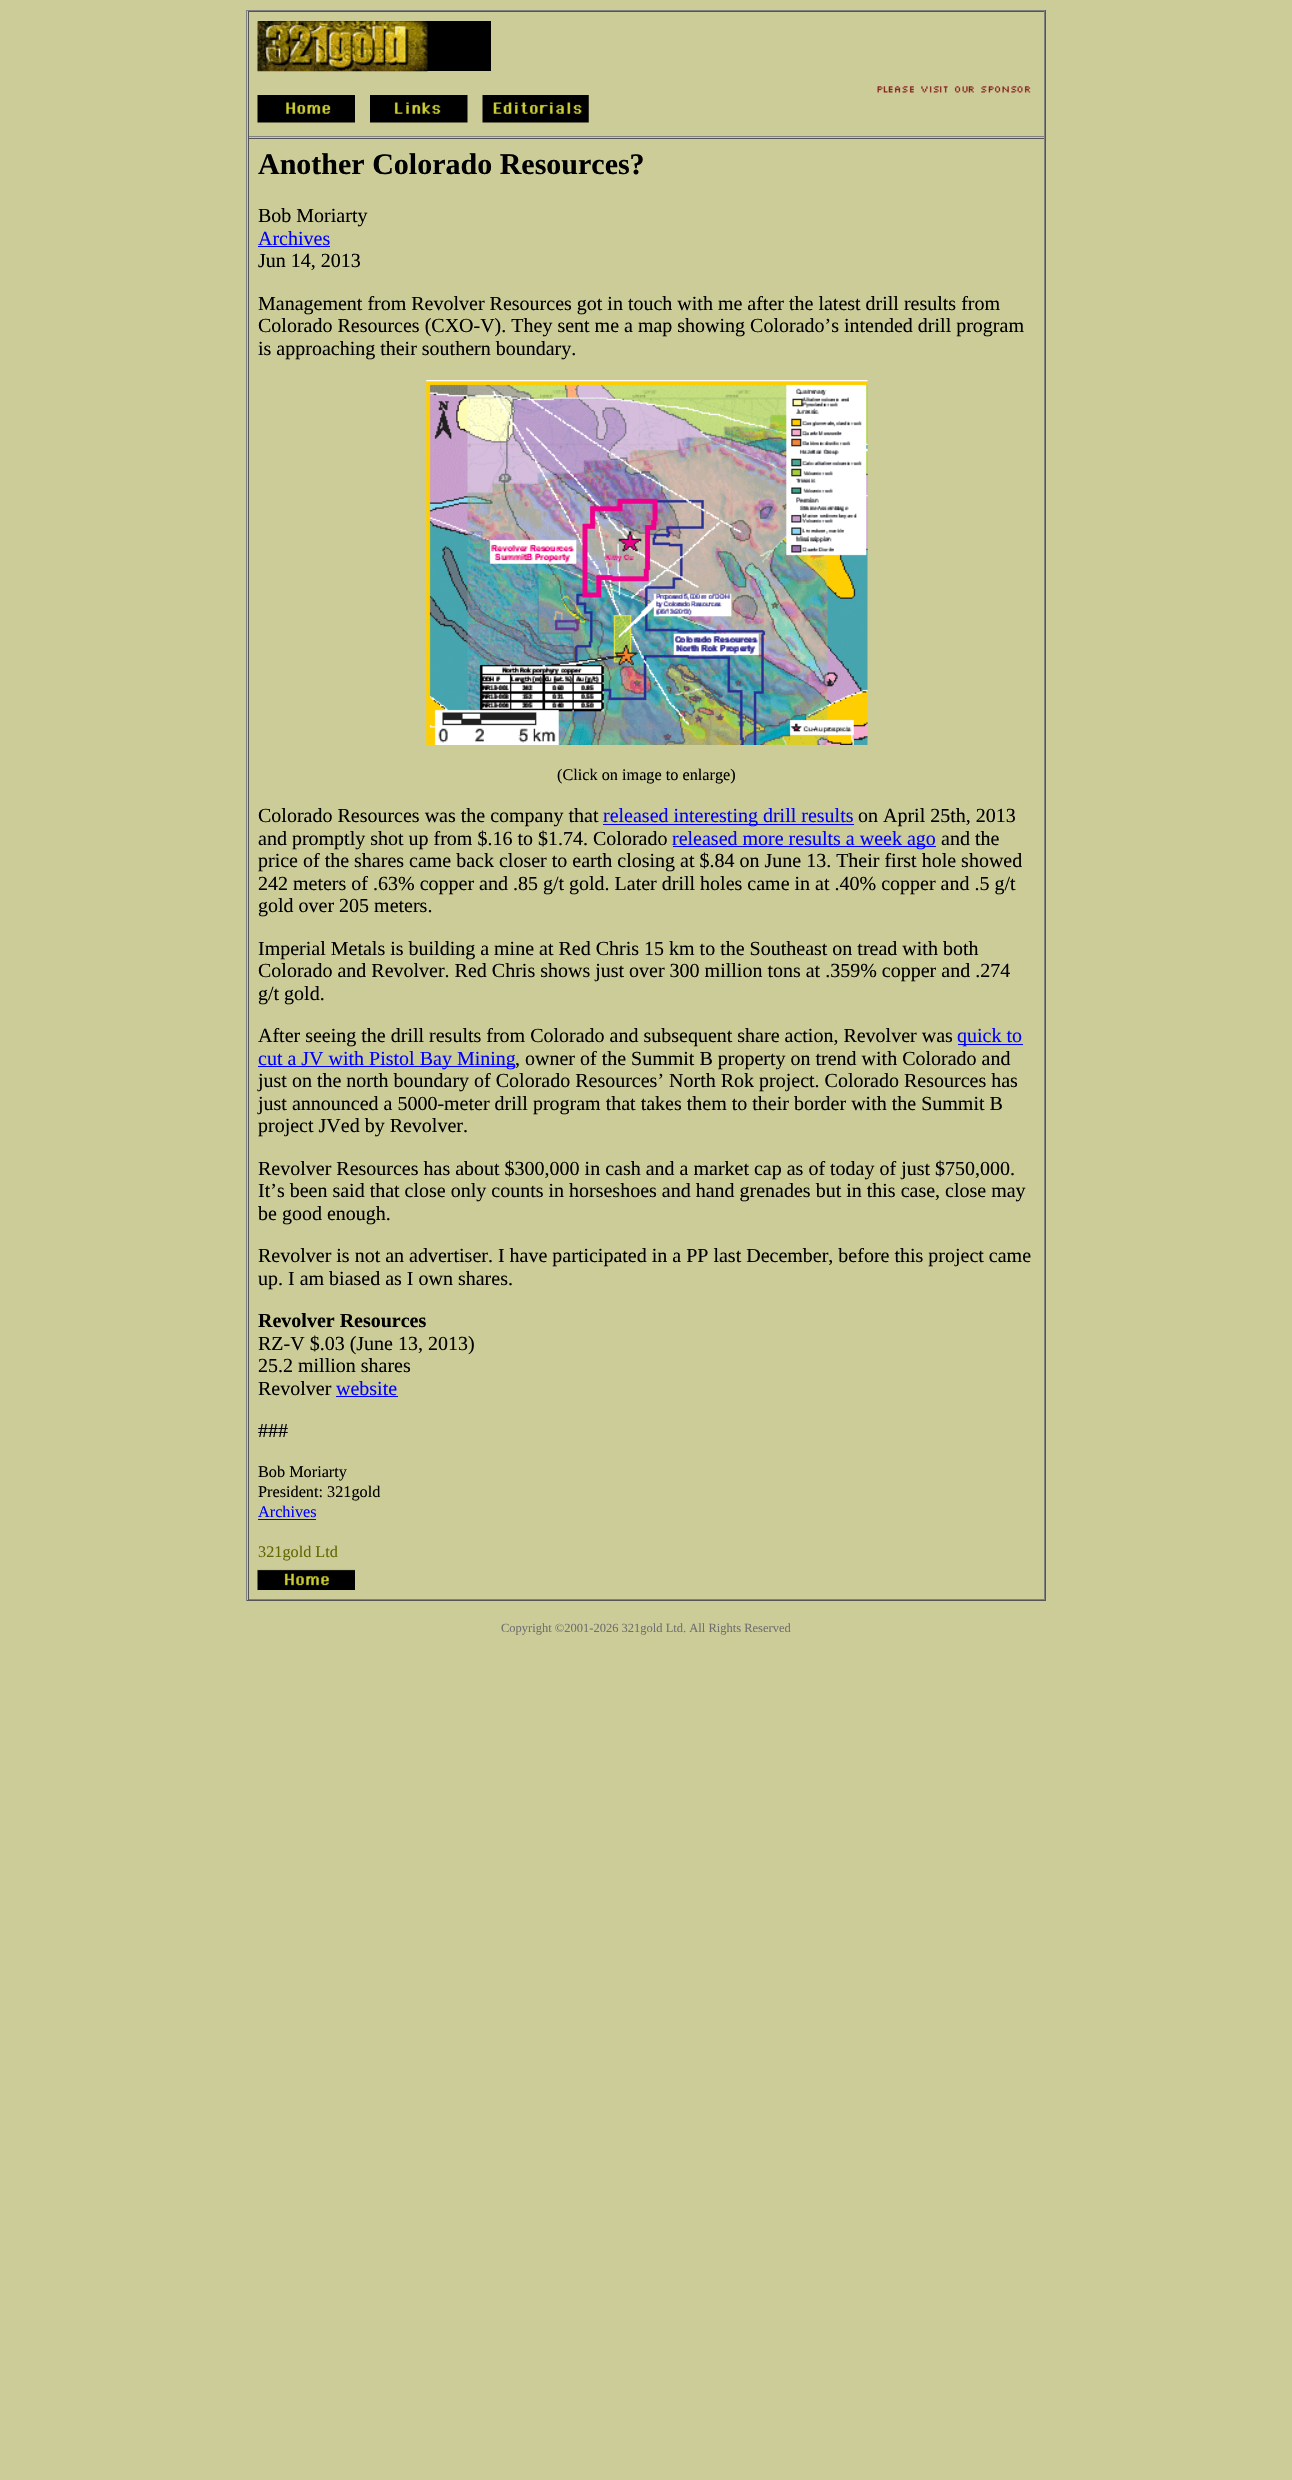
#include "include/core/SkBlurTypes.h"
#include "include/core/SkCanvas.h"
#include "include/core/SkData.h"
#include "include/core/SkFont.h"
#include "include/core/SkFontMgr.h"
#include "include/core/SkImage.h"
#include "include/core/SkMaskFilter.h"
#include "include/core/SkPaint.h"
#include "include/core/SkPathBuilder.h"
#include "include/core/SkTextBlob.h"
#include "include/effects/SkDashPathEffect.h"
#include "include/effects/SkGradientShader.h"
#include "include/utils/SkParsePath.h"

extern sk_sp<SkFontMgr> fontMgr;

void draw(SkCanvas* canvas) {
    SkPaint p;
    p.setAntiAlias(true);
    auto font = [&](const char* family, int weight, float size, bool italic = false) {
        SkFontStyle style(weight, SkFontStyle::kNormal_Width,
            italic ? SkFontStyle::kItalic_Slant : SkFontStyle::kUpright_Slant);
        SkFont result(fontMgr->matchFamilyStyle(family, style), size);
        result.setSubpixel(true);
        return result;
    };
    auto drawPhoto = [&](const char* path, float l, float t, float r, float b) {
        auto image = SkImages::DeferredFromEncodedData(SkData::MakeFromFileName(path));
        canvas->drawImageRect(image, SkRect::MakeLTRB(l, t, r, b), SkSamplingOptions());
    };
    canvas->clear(0xFFCCCC99);
    {
        const struct { float l, t, r, b; SkColor color; } items[] = {
            {246, 10, 1046, 11, 0xFF808080},
            {1045, 10, 1046, 1601, 0xFF555555},
            {246, 1600, 1046, 1601, 0xFF555555},
            {246, 10, 247, 1601, 0xFF808080},
            {248, 11, 1045, 12, 0xFF555555},
            {1044, 11, 1045, 138, 0xFF808080},
            {248, 136, 1045, 137, 0xFF808080},
            {248, 11, 249, 138, 0xFF555555},
            {258, 21, 491, 71, 0xFF000000},
        };
        for (auto [l, t, r, b, color] : items) {
            p.setColor(color);
            canvas->drawRect(SkRect::MakeLTRB(l, t, r, b), p);
        }
    }
    drawPhoto("media/1.png", 257, 21, 428, 72);
    drawPhoto("media/2.png", 877, 86, 1031, 93);
    drawPhoto("media/3.png", 257, 95, 355, 123);
    drawPhoto("media/4.png", 370, 95, 468, 123);
    drawPhoto("media/5.png", 482, 95, 589, 123);
    {
        const struct { float l, t, r, b; SkColor color; } items[] = {
            {248, 138, 1045, 139, 0xFF555555},
            {1044, 138, 1045, 1600, 0xFF808080},
            {248, 1599, 1045, 1600, 0xFF808080},
            {248, 138, 249, 1600, 0xFF555555},
        };
        for (auto [l, t, r, b, color] : items) {
            p.setColor(color);
            canvas->drawRect(SkRect::MakeLTRB(l, t, r, b), p);
        }
    }
    auto font1 = font("Liberation Serif", 700, 30);
    p.setColor(0xFF000000);
    canvas->drawString("Another Colorado Resources?", 258, 174, font1, p);
    auto font2 = font("Liberation Serif", 400, 20);
    canvas->drawString("Bob Moriarty", 258, 222, font2, p);
    p.setColor(0xFF0000FF);
    canvas->drawString("Archives", 258, 245, font2, p);
    canvas->drawRect(SkRect::MakeLTRB(258, 246, 330, 247), p);
    p.setColor(0xFF000000);
    {
        const struct { const char* s; float x, y; } items[] = {
            {"Jun 14, 2013", 258, 267},
            {"Management from Revolver Resources got in touch with me after the latest drill results from", 258, 310},
            {"Colorado Resources (CXO-V). They sent me a map showing Colorado’s intended drill program", 258, 332},
            {"is approaching their southern boundary.", 258, 355},
        };
        for (auto [s, x, y] : items) {
            canvas->drawString(s, x, y, font2, p);
        }
    }
    drawPhoto("media/6.png", 426, 380, 868, 745);
    auto font3 = font("Liberation Serif", 400, 16.25f);
    canvas->drawString("(Click on image to enlarge)", 557, 780, font3, p);
    canvas->drawString("Colorado Resources was the company that", 258, 822, font2, p);
    p.setColor(0xFF0000FF);
    canvas->drawRect(SkRect::MakeLTRB(603, 824, 854, 825), p);
    canvas->drawString("released interesting drill results", 603, 822, font2, p);
    p.setColor(0xFF000000);
    canvas->drawString("on April 25th, 2013", 858, 822, font2, p);
    canvas->drawString("and promptly shot up from $.16 to $1.74. Colorado", 258, 845, font2, p);
    p.setColor(0xFF0000FF);
    canvas->drawRect(SkRect::MakeLTRB(673, 846, 936, 847), p);
    canvas->drawString("released more results a week ago", 672, 845, font2, p);
    p.setColor(0xFF000000);
    {
        const struct { const char* s; float x, y; } items[] = {
            {"and the", 941, 845},
            {"price of the shares came back closer to earth closing at $.84 on June 13. Their first hole showed", 258, 867},
            {"242 meters of .63% copper and .85 g/t gold. Later drill holes came in at .40% copper and .5 g/t", 258, 890},
            {"gold over 205 meters.", 258, 912},
            {"Imperial Metals is building a mine at Red Chris 15 km to the Southeast on tread with both", 258, 955},
            {"Colorado and Revolver. Red Chris shows just over 300 million tons at .359% copper and .274", 258, 977},
            {"g/t gold.", 258, 1000},
            {"After seeing the drill results from Colorado and subsequent share action, Revolver was", 258, 1042},
        };
        for (auto [s, x, y] : items) {
            canvas->drawString(s, x, y, font2, p);
        }
    }
    p.setColor(0xFF0000FF);
    canvas->drawRect(SkRect::MakeLTRB(958, 1044, 1023, 1045), p);
    canvas->drawString("quick to", 957, 1042, font2, p);
    canvas->drawRect(SkRect::MakeLTRB(258, 1066, 515, 1067), p);
    canvas->drawString("cut a JV with Pistol Bay Mining", 258, 1065, font2, p);
    p.setColor(0xFF000000);
    {
        const struct { const char* s; float x, y; } items[] = {
            {", owner of the Summit B property on trend with Colorado and", 515, 1065},
            {"just on the north boundary of Colorado Resources’ North Rok project. Colorado Resources has", 258, 1087},
            {"just announced a 5000-meter drill program that takes them to their border with the Summit B", 258, 1110},
            {"project JVed by Revolver.", 258, 1132},
            {"Revolver Resources has about $300,000 in cash and a market cap as of today of just $750,000.", 258, 1175},
            {"It’s been said that close only counts in horseshoes and hand grenades but in this case, close may", 258, 1197},
            {"be good enough.", 258, 1220},
            {"Revolver is not an advertiser. I have participated in a PP last December, before this project came", 258, 1262},
            {"up. I am biased as I own shares.", 258, 1285},
        };
        for (auto [s, x, y] : items) {
            canvas->drawString(s, x, y, font2, p);
        }
    }
    auto font4 = font("Liberation Serif", 700, 20);
    canvas->drawString("Revolver Resources", 258, 1327, font4, p);
    {
        const struct { const char* s; float x, y; } items[] = {
            {"RZ-V $.03 (June 13, 2013)", 258, 1350},
            {"25.2 million shares", 258, 1372},
            {"Revolver", 258, 1395},
        };
        for (auto [s, x, y] : items) {
            canvas->drawString(s, x, y, font2, p);
        }
    }
    p.setColor(0xFF0000FF);
    canvas->drawString("website", 336, 1395, font2, p);
    canvas->drawRect(SkRect::MakeLTRB(336, 1396, 398, 1397), p);
    p.setColor(0xFF000000);
    canvas->drawString("###", 258, 1437, font2, p);
    canvas->drawString("Bob Moriarty", 258, 1477, font3, p);
    canvas->drawString("President: 321gold", 258, 1497, font3, p);
    p.setColor(0xFF0000FF);
    canvas->drawString("Archives", 258, 1517, font3, p);
    canvas->drawRect(SkRect::MakeLTRB(258, 1519, 316, 1520), p);
    p.setColor(0xFF666600);
    canvas->drawString("321gold Ltd", 258, 1557, font3, p);
    drawPhoto("media/7.png", 257, 1569, 355, 1590);
    auto font5 = font("Liberation Serif", 400, 12.5f);
    p.setColor(0xFF70706F);
    canvas->drawString("Copyright ©2001-2026 321gold Ltd. All Rights Reserved", 501, 1632, font5, p);
}
